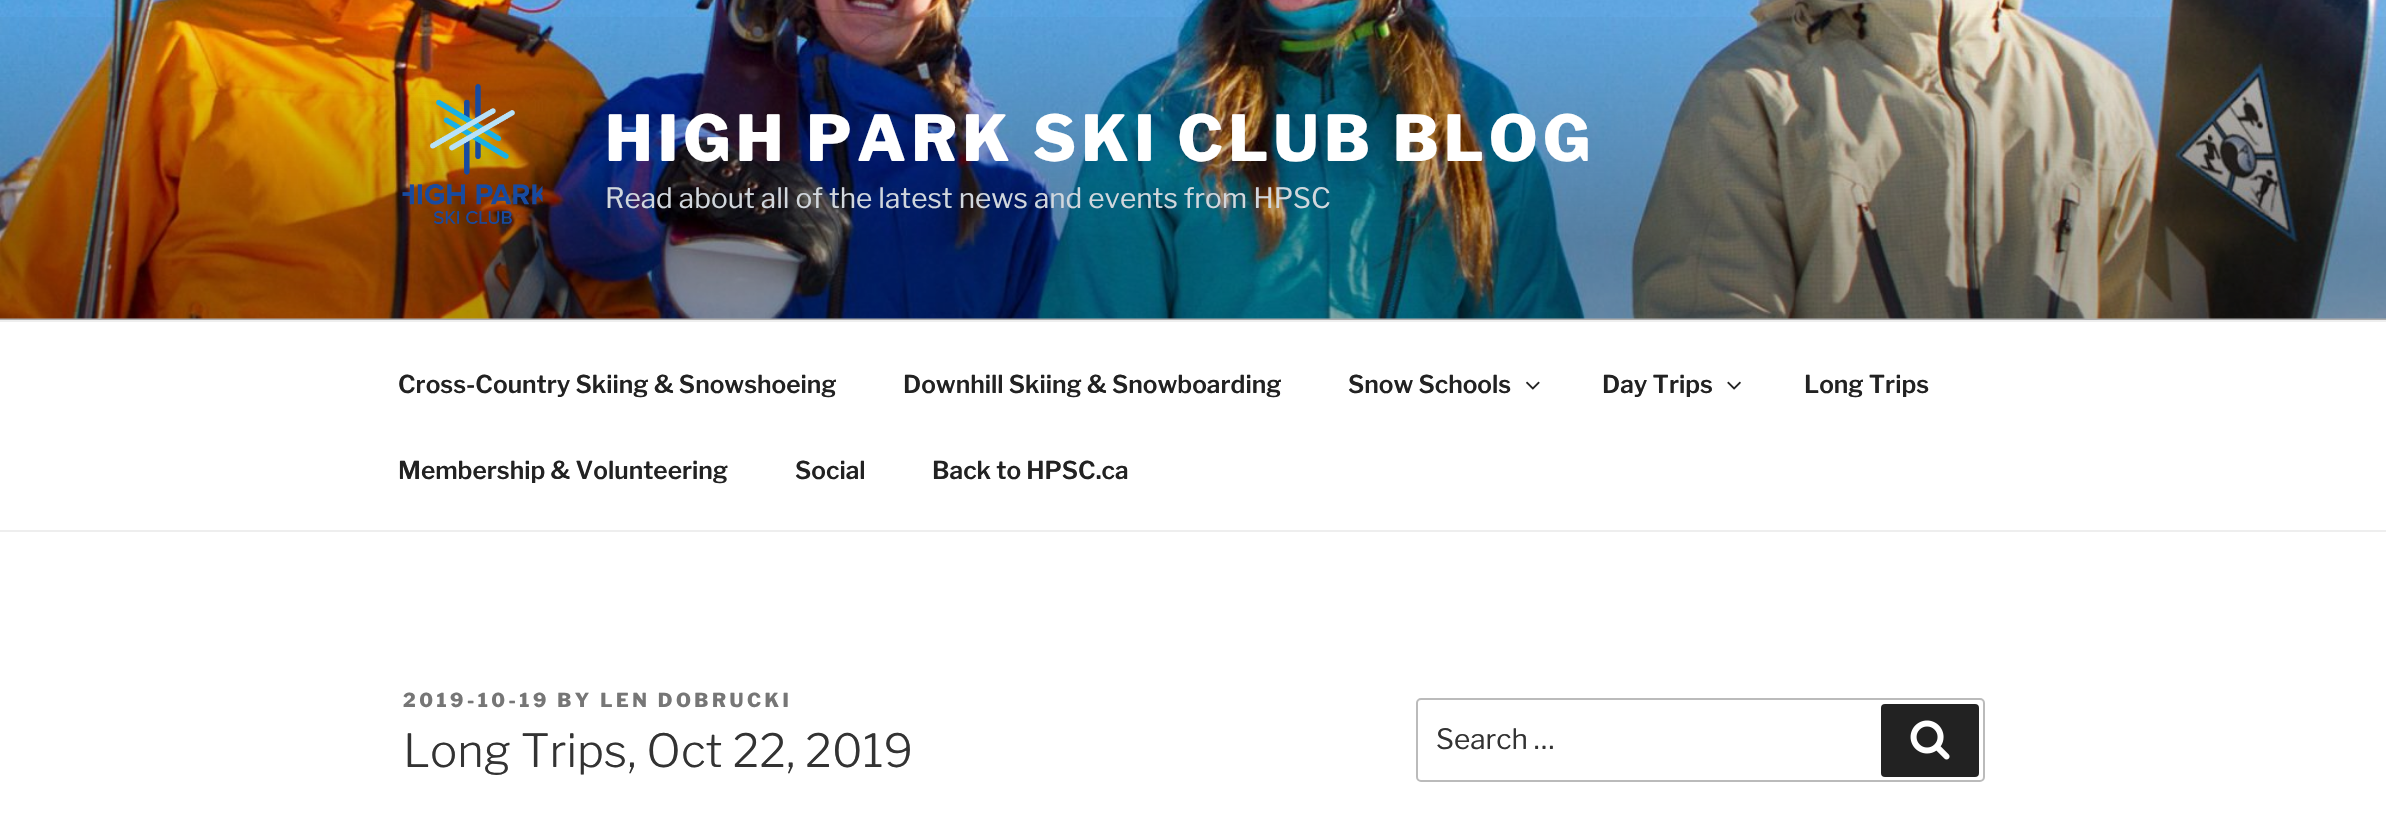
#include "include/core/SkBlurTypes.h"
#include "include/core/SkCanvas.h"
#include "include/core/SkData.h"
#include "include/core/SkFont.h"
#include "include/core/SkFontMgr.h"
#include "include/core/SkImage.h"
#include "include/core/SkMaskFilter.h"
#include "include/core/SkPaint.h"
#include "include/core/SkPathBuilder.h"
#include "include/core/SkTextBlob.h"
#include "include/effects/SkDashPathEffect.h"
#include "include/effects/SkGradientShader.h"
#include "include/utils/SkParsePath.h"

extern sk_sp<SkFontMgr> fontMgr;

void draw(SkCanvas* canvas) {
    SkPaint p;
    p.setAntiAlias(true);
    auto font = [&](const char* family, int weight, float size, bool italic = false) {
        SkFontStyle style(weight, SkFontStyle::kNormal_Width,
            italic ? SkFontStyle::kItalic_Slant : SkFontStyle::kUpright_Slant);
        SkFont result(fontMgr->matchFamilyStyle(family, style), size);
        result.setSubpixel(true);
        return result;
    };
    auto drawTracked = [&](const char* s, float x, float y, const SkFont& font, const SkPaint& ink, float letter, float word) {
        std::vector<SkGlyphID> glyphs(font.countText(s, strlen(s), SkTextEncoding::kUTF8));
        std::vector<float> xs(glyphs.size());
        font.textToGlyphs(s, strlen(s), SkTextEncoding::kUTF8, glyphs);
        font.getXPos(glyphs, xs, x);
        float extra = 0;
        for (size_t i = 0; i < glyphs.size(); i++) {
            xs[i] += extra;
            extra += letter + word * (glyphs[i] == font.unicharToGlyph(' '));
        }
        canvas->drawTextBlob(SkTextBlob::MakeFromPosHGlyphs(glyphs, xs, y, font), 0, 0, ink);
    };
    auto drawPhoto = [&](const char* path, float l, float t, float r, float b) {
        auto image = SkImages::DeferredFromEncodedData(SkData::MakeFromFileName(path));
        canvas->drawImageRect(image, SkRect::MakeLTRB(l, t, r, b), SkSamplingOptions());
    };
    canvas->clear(0xFFFFFFFF);
    p.setColor(0xFFFAFAFA);
    canvas->drawRect(SkRect::MakeLTRB(0, 318, 2386, 320), p);
    drawPhoto("media/1.png", 0, 0, 2386, 319);
    {
        const SkColor colors[] = {0x00000000, 0x4D000000, 0x4D000000};
        const float stops[] = {0, 0.75f, 1};
        const SkPoint ends[] = {{1194, 0}, {1194, 320}};
        p.setShader(SkGradientShader::MakeLinear(ends, colors, stops, 3, SkTileMode::kClamp));
        p.setAlpha(255);
    }
    canvas->drawRect(SkRect::MakeLTRB(0, 17, 2386, 320), p);
    drawPhoto("media/2.png", 402, 84, 543, 224);
    auto font1 = font("Libre Franklin", 100, 63);
    p.setShader(nullptr);
    p.setColor(0xFFFFFFFF);
    drawTracked("HIGH PARK SKI CLUB BLOG", 605, 161, font1, p, 5, 0);
    auto font2 = font("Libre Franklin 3", 100, 28);
    p.setColor(0xFFD1D7DD);
    canvas->drawString("Read about all of the latest news and events from HPSC", 605, 208, font2, p);
    p.setColor(0xFFEEEEEE);
    canvas->drawRect(SkRect::MakeLTRB(0, 320, 2386, 322), p);
    canvas->drawRect(SkRect::MakeLTRB(0, 530, 2386, 532), p);
    auto font3 = font("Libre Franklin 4", 100, 24.5f);
    p.setColor(0xFF222222);
    {
        const struct { const char* s; float x, y; } items[] = {
            {"Cross-Country Skiing & Snowshoeing", 398, 393},
            {"Downhill Skiing & Snowboarding", 903, 393},
            {"Snow Schools", 1348, 393},
        };
        for (auto [s, x, y] : items) {
            canvas->drawString(s, x, y, font3, p);
        }
    }
    drawPhoto("media/3.png", 1526, 381, 1540, 390);
    canvas->drawString("Day Trips", 1602, 393, font3, p);
    drawPhoto("media/4.png", 1727, 381, 1741, 390);
    {
        const struct { const char* s; float x, y; } items[] = {
            {"Long Trips", 1804, 393},
            {"Membership & Volunteering", 398, 479},
            {"Social", 795, 479},
            {"Back to HPSC.ca", 932, 479},
        };
        for (auto [s, x, y] : items) {
            canvas->drawString(s, x, y, font3, p);
        }
    }
    auto font4 = font("Libre Franklin", 100, 19.25f);
    p.setColor(0xFF767676);
    drawTracked("2019-10-19 BY LEN DOBRUCKI", 403, 707, font4, p, 3.5f, 0);
    auto font5 = font("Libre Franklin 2", 100, 45.5f);
    p.setColor(0xFF333333);
    canvas->drawString("Long Trips, Oct 22, 2019", 403, 767, font5, p);
    p.setStyle(SkPaint::kStroke_Style);
    p.setStrokeWidth(2);
    p.setColor(0xFFBBBBBB);
    canvas->drawRoundRect(SkRect::MakeLTRB(1417, 699, 1984, 781), 4, 4, p);
    p.setStyle(SkPaint::kFill_Style);
    p.setColor(0xFF333333);
    canvas->drawString("Search …", 1436, 749, font2, p);
    p.setColor(0xFF222222);
    canvas->drawRoundRect(SkRect::MakeLTRB(1881, 704, 1979, 777), 4, 4, p);
    drawPhoto("media/5.png", 1910, 720, 1950, 760);
}
